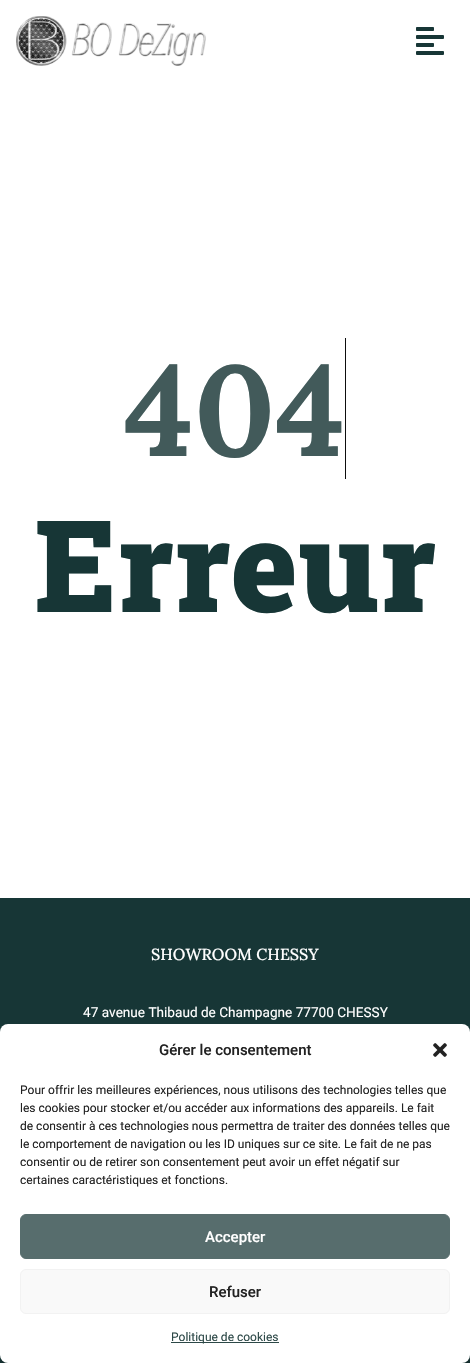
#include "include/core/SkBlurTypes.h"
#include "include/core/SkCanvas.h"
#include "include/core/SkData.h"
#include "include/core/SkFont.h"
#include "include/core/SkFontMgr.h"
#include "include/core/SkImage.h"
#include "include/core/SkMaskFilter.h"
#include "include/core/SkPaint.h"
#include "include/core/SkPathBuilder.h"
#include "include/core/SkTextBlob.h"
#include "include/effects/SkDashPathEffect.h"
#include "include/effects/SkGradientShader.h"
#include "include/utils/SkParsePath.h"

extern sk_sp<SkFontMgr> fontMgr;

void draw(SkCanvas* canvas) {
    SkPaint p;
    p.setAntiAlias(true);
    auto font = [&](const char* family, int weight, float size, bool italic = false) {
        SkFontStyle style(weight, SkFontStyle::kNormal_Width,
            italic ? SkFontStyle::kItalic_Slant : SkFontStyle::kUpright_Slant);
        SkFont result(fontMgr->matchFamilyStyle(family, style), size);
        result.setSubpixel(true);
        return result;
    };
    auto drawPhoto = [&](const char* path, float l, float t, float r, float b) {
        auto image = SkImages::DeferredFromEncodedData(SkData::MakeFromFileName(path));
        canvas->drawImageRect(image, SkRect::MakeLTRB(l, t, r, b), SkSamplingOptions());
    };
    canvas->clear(0xFFFFFFFF);
    drawPhoto("media/1.png", 16, 16, 206, 66);
    drawPhoto("media/2.png", 416, 27, 444, 55);
    auto font1 = font("Lora", 700, 128);
    p.setColor(0xFF425A5A);
    canvas->drawString("404", 124, 456, font1, p);
    p.setColor(0xFF0D0D0D);
    canvas->drawRect(SkRect::MakeLTRB(345, 338, 346, 479), p);
    auto font2 = font("Roboto Slab", 900, 128);
    p.setColor(0xFF173636);
    canvas->drawString("Erreur", 35, 612, font2, p);
    canvas->drawRect(SkRect::MakeLTRB(0, 898, 470, 1363), p);
    auto font3 = font("Lora", 500, 16);
    p.setColor(0xFFFFFFFF);
    canvas->drawString("SHOWROOM CHESSY", 151, 960, font3, p);
    auto font4 = font("Roboto", 400, 13.6f);
    canvas->drawString("47 avenue Thibaud de Champagne 77700 CHESSY", 83, 1017, font4, p);
    p.setColor(0x3B000000);
    p.setMaskFilter(SkMaskFilter::MakeBlur(kNormal_SkBlurStyle, 3));
    canvas->drawRoundRect(SkRect::MakeLTRB(0, 1030, 470, 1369), 8, 8, p);
    p.setMaskFilter(nullptr);
    p.setColor(0xFFFFFFFF);
    canvas->drawRoundRect(SkRect::MakeLTRB(0, 1024, 470, 1363), 8, 8, p);
    auto font5 = font("Roboto", 500, 15);
    p.setColor(0xFF222222);
    canvas->drawString("Gérer le consentement", 159, 1055, font5, p);
    drawPhoto("media/3.png", 433, 1043, 447, 1057);
    auto font6 = font("Roboto", 400, 12);
    {
        const struct { const char* s; float x, y; } items[] = {
            {"Pour offrir les meilleures expériences, nous utilisons des technologies telles que", 20, 1094},
            {"les cookies pour stocker et/ou accéder aux informations des appareils. Le fait", 20, 1112},
            {"de consentir à ces technologies nous permettra de traiter des données telles que", 20, 1130},
            {"le comportement de navigation ou les ID uniques sur ce site. Le fait de ne pas", 20, 1148},
            {"consentir ou de retirer son consentement peut avoir un effet négatif sur", 20, 1166},
            {"certaines caractéristiques et fonctions.", 20, 1184},
        };
        for (auto [s, x, y] : items) {
            canvas->drawString(s, x, y, font6, p);
        }
    }
    p.setColor(0xFF576D6D);
    canvas->drawRoundRect(SkRect::MakeLTRB(20.5f, 1214.5f, 449.5f, 1258.5f), 5.5f, 5.5f, p);
    p.setStyle(SkPaint::kStroke_Style);
    p.setStrokeWidth(1);
    canvas->drawRoundRect(SkRect::MakeLTRB(20.5f, 1214.5f, 449.5f, 1258.5f), 5.5f, 5.5f, p);
    p.setStyle(SkPaint::kFill_Style);
    p.setColor(0xFFFFFFFF);
    canvas->drawString("Accepter", 205, 1242, font5, p);
    p.setColor(0xFFF9F9F9);
    canvas->drawRoundRect(SkRect::MakeLTRB(20.5f, 1269.5f, 449.5f, 1313.5f), 5.5f, 5.5f, p);
    p.setStyle(SkPaint::kStroke_Style);
    p.setColor(0xFFF2F2F2);
    canvas->drawRoundRect(SkRect::MakeLTRB(20.5f, 1269.5f, 449.5f, 1313.5f), 5.5f, 5.5f, p);
    p.setStyle(SkPaint::kFill_Style);
    p.setColor(0xFF222222);
    canvas->drawString("Refuser", 209, 1297, font5, p);
    p.setColor(0xFF2C4847);
    canvas->drawRect(SkRect::MakeLTRB(171, 1342, 279, 1343), p);
    canvas->drawString("Politique de cookies", 171, 1341, font6, p);
}
